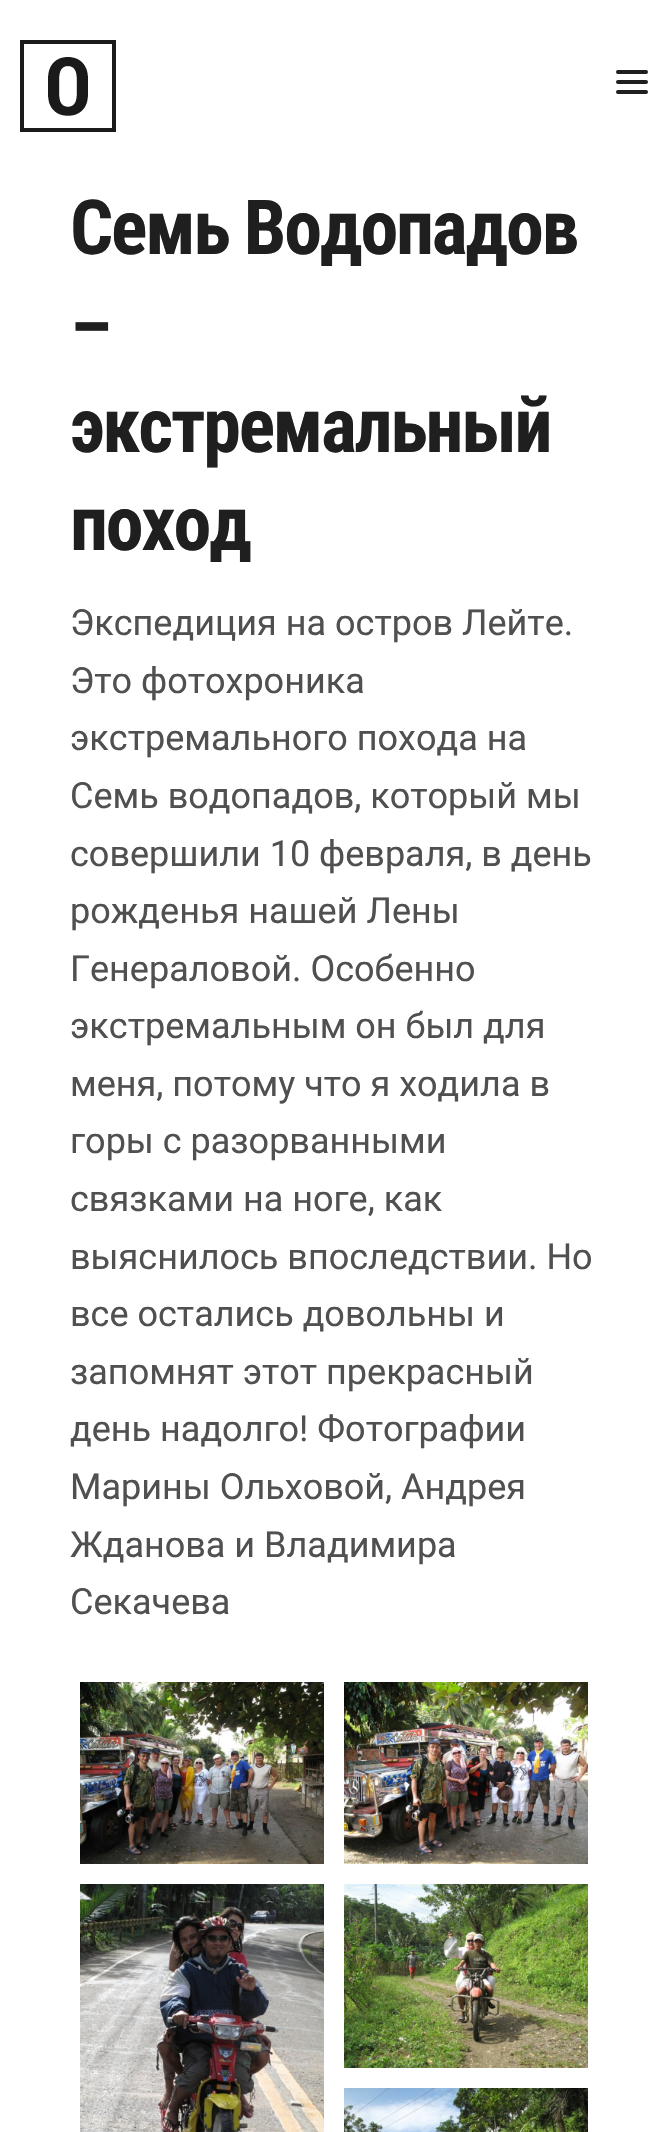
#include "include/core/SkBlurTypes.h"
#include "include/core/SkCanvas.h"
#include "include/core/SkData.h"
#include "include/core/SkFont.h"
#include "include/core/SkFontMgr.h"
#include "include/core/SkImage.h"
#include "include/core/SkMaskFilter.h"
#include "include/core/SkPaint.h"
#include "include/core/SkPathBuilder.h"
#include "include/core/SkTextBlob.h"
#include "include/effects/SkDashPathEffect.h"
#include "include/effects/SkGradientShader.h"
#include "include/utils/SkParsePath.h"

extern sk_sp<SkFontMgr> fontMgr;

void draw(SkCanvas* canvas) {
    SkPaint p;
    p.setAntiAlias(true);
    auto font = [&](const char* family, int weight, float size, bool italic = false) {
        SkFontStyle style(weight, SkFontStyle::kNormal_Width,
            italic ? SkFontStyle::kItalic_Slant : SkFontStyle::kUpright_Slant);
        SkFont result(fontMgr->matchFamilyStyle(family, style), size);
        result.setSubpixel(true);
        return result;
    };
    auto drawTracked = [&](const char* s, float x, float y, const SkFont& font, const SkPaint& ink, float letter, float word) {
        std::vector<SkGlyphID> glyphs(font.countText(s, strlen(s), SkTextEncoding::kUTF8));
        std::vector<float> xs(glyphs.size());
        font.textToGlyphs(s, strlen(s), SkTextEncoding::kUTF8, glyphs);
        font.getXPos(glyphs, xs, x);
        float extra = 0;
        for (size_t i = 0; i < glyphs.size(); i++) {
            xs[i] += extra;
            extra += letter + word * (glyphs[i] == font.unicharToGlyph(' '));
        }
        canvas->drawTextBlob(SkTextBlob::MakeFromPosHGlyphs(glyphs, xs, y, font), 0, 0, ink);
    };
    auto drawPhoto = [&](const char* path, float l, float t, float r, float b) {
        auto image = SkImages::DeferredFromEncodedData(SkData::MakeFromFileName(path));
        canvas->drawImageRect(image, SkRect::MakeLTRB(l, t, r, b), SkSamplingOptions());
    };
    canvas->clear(0xFFFFFFFF);
    drawPhoto("media/1.png", 20, 40, 116, 132);
    p.setColor(0xFF1F1F1F);
    canvas->drawRoundRect(SkRect::MakeLTRB(616, 70, 648, 74), 2, 2, p);
    canvas->drawRoundRect(SkRect::MakeLTRB(616, 80, 648, 84), 2, 2, p);
    canvas->drawRoundRect(SkRect::MakeLTRB(616, 90, 648, 94), 2, 2, p);
    auto font1 = font("Roboto Condensed", 700, 76);
    {
        const struct { const char* s; float x, y; } items[] = {
            {"Семь Водопадов", 70, 254},
            {"–", 70, 353},
            {"экстремальный", 70, 452},
            {"поход", 70, 550},
        };
        for (auto [s, x, y] : items) {
            drawTracked(s, x, y, font1, p, -2.25f, 0);
        }
    }
    auto font2 = font("Roboto", 400, 36);
    p.setColor(0xFF505050);
    {
        const struct { const char* s; float x, y; } items[] = {
            {"Экспедиция на остров Лейте.", 70, 635},
            {"Это фотохроника", 70, 693},
            {"экстремального похода на", 70, 750},
            {"Семь водопадов, который мы", 70, 808},
            {"совершили 10 февраля, в день", 70, 866},
            {"рожденья нашей Лены", 70, 923},
            {"Генераловой. Особенно", 70, 981},
            {"экстремальным он был для", 70, 1038},
            {"меня, потому что я ходила в", 70, 1096},
            {"горы с разорванными", 70, 1153},
            {"связками на ноге, как", 70, 1211},
            {"выяснилось впоследствии. Но", 70, 1269},
            {"все остались довольны и", 70, 1326},
            {"запомнят этот прекрасный", 70, 1384},
            {"день надолго! Фотографии", 70, 1441},
            {"Марины Ольховой, Андрея", 70, 1499},
            {"Жданова и Владимира", 70, 1557},
            {"Секачева", 70, 1614},
        };
        for (auto [s, x, y] : items) {
            canvas->drawString(s, x, y, font2, p);
        }
    }
    drawPhoto("media/2.png", 80, 1682, 324, 1864);
    drawPhoto("media/3.png", 344, 1682, 588, 1864);
    drawPhoto("media/4.png", 80, 1884, 324, 2132);
    drawPhoto("media/5.png", 344, 1884, 588, 2068);
    drawPhoto("media/6.png", 344, 2088, 588, 2132);
}
